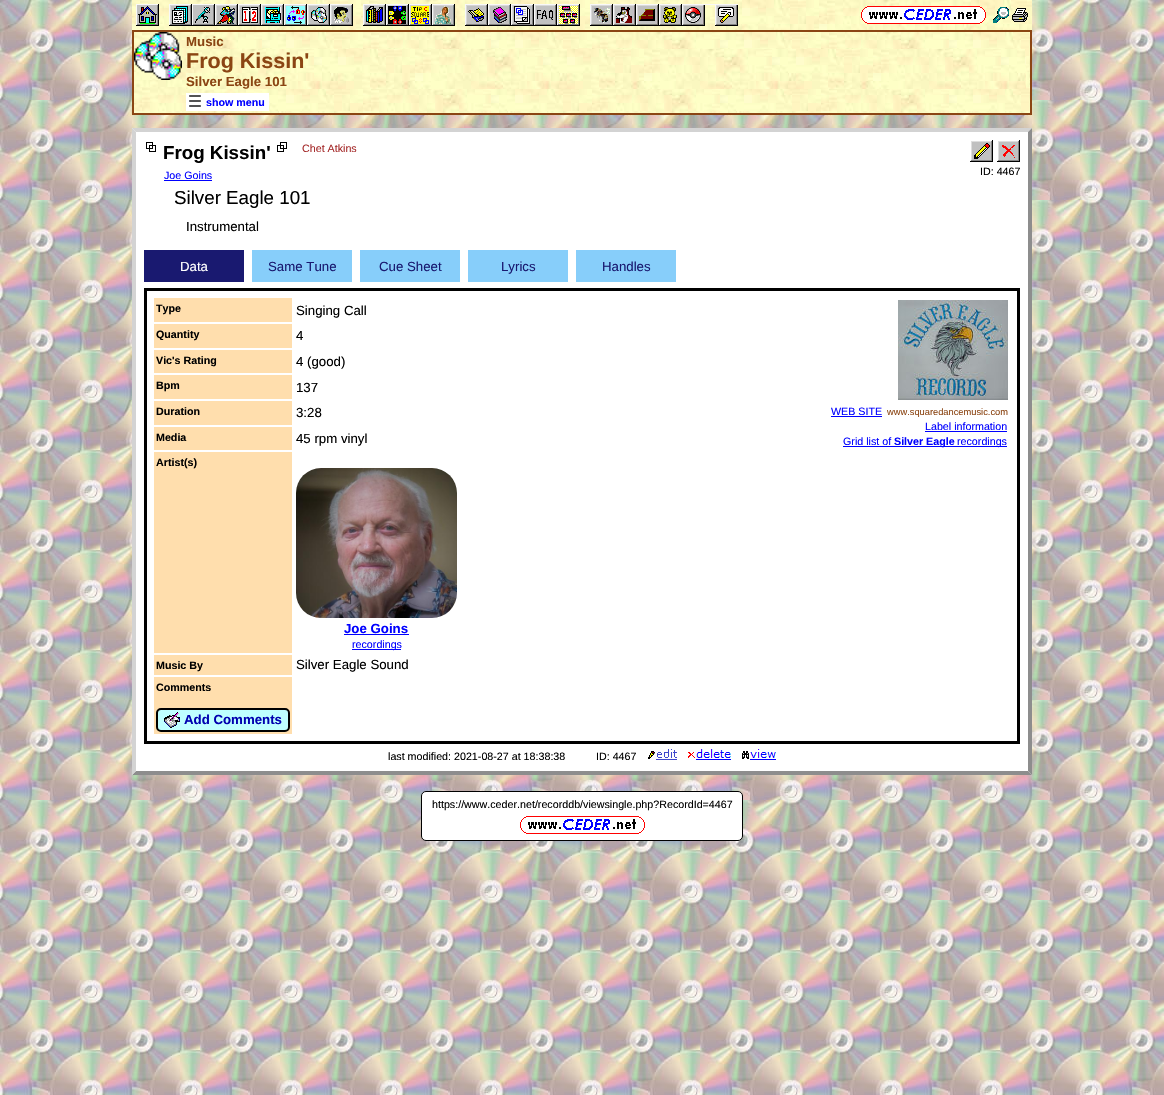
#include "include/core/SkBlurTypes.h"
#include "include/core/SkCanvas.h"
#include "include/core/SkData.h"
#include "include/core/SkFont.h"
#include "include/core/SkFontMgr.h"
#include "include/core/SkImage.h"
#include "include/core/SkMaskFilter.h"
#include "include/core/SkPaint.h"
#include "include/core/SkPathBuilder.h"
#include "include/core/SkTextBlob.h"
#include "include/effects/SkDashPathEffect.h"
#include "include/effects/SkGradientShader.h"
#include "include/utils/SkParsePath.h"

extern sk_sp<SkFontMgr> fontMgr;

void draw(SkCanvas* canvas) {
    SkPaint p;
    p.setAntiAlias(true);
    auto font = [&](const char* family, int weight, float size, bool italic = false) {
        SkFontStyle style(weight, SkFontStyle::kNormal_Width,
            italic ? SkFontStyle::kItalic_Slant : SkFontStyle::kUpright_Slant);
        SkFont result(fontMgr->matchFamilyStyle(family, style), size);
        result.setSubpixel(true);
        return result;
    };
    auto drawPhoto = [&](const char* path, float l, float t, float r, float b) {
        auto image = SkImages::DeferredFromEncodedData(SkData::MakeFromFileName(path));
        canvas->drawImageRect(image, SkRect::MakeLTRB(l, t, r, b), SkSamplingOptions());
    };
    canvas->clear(0xFFFFFFFF);
    drawPhoto("media/1.png", 0, 0, 1164, 1095);
    drawPhoto("media/2.png", 132, 0, 1032, 30);
    drawPhoto("media/3.png", 861, 6, 986, 24);
    drawPhoto("media/4.png", 993, 7, 1009, 23);
    drawPhoto("media/5.png", 1012, 8, 1028, 22);
    drawPhoto("media/6.png", 136, 4, 738, 26);
    drawPhoto("media/7.png", 134, 32, 1030, 113);
    p.setStyle(SkPaint::kStroke_Style);
    p.setStrokeWidth(2);
    p.setColor(0xFF8B4513);
    canvas->drawRect(SkRect::MakeLTRB(133, 31, 1031, 114), p);
    drawPhoto("media/8.png", 134, 32, 182, 80);
    auto font1 = font("Liberation Sans", 700, 13.25f);
    p.setStyle(SkPaint::kFill_Style);
    canvas->drawString("Music", 186, 46, font1, p);
    drawPhoto("media/9.png", 186, 49, 1026, 89);
    auto font2 = font("Liberation Sans", 700, 21.5f);
    canvas->drawString("Frog Kissin'", 186, 68, font2, p);
    canvas->drawString("Silver Eagle 101", 186, 86, font1, p);
    p.setColor(0xFFFFFFFF);
    canvas->drawRect(SkRect::MakeLTRB(186, 93, 269, 111), p);
    drawPhoto("media/10.png", 189, 95, 201, 107);
    auto font3 = font("Liberation Sans", 700, 10.7f);
    p.setColor(0xFF0000FF);
    canvas->drawString("show menu", 206, 106, font3, p);
    p.setColor(0xFFFFFFFF);
    canvas->drawRect(SkRect::MakeLTRB(132, 128, 1032, 775), p);
    p.setColor(0xFFD3D3D3);
    canvas->drawPath(SkPathBuilder().moveTo(132, 128).lineTo(1032, 128).lineTo(1028, 132).lineTo(136, 132).close().detach(), p);
    p.setColor(0xFF8D8D8D);
    canvas->drawPath(SkPathBuilder().moveTo(1032, 128).lineTo(1032, 775).lineTo(1028, 771).lineTo(1028, 132).close().detach(), p);
    canvas->drawPath(SkPathBuilder().moveTo(1032, 775).lineTo(132, 775).lineTo(136, 771).lineTo(1028, 771).close().detach(), p);
    p.setColor(0xFFD3D3D3);
    canvas->drawPath(SkPathBuilder().moveTo(132, 775).lineTo(132, 128).lineTo(136, 132).lineTo(136, 771).close().detach(), p);
    drawPhoto("media/11.png", 146, 142, 156, 152);
    auto font4 = font("Liberation Sans", 700, 18.75f);
    p.setColor(0xFF000000);
    canvas->drawString("Frog Kissin'", 163, 159, font4, p);
    auto font5 = font("Liberation Sans", 400, 10.7f);
    p.setColor(0xFF0000FF);
    canvas->drawString("Joe Goins", 164, 179, font5, p);
    canvas->drawRect(SkRect::MakeLTRB(164, 180, 212, 181), p);
    drawPhoto("media/12.png", 277, 142, 287, 152);
    p.setColor(0xFFA52A2A);
    canvas->drawString("Chet Atkins", 302, 152, font5, p);
    auto font6 = font("Liberation Sans", 400, 18.75f);
    p.setColor(0xFF000000);
    canvas->drawString("Silver Eagle 101", 174, 204, font6, p);
    drawPhoto("media/13.png", 970, 140, 993, 162);
    drawPhoto("media/14.png", 997, 140, 1020, 162);
    canvas->drawString("ID: 4467", 980, 175, font5, p);
    auto font7 = font("Liberation Sans", 400, 13.25f);
    canvas->drawString("Instrumental", 186, 231, font7, p);
    p.setColor(0xFF191970);
    canvas->drawRect(SkRect::MakeLTRB(144, 250, 244, 282), p);
    p.setColor(0xFFFFFFFF);
    canvas->drawString("Data", 180, 271, font7, p);
    p.setColor(0xFF87CEFA);
    canvas->drawRect(SkRect::MakeLTRB(252, 250, 352, 282), p);
    p.setColor(0xFF191970);
    canvas->drawString("Same Tune", 268, 271, font7, p);
    p.setColor(0xFF87CEFA);
    canvas->drawRect(SkRect::MakeLTRB(360, 250, 460, 282), p);
    p.setColor(0xFF191970);
    canvas->drawString("Cue Sheet", 379, 271, font7, p);
    p.setColor(0xFF87CEFA);
    canvas->drawRect(SkRect::MakeLTRB(468, 250, 568, 282), p);
    p.setColor(0xFF191970);
    canvas->drawString("Lyrics", 501, 271, font7, p);
    p.setColor(0xFF87CEFA);
    canvas->drawRect(SkRect::MakeLTRB(576, 250, 676, 282), p);
    p.setColor(0xFF191970);
    canvas->drawString("Handles", 602, 271, font7, p);
    p.setStyle(SkPaint::kStroke_Style);
    p.setStrokeWidth(3);
    p.setColor(0xFF000000);
    canvas->drawRect(SkRect::MakeLTRB(145.5f, 289.5f, 1018.5f, 742.5f), p);
    p.setStyle(SkPaint::kFill_Style);
    p.setColor(0xFFFFDEAD);
    canvas->drawRect(SkRect::MakeLTRB(154, 298, 292, 322), p);
    p.setColor(0xFF000000);
    canvas->drawString("Type", 156, 312, font3, p);
    canvas->drawString("Singing Call", 296, 315, font7, p);
    drawPhoto("media/15.png", 898, 300, 1008, 400);
    p.setColor(0xFF0000FF);
    canvas->drawString("WEB SITE", 831, 415, font5, p);
    canvas->drawRect(SkRect::MakeLTRB(831, 416, 882, 417), p);
    auto font8 = font("Liberation Sans", 400, 9.3f);
    p.setColor(0xFF8B4513);
    canvas->drawString("www.squaredancemusic.com", 887, 415, font8, p);
    p.setColor(0xFF0000FF);
    canvas->drawString("Label information", 925, 430, font5, p);
    canvas->drawRect(SkRect::MakeLTRB(925, 431, 1007, 432), p);
    canvas->drawString("Grid list of", 843, 445, font5, p);
    canvas->drawRect(SkRect::MakeLTRB(843, 446, 1007, 447), p);
    canvas->drawString("Silver Eagle", 894, 445, font3, p);
    canvas->drawString("recordings", 957, 445, font5, p);
    p.setColor(0xFFFFDEAD);
    canvas->drawRect(SkRect::MakeLTRB(154, 324, 292, 348), p);
    p.setColor(0xFF000000);
    canvas->drawString("Quantity", 156, 338, font3, p);
    canvas->drawString("4", 296, 340, font7, p);
    p.setColor(0xFFFFDEAD);
    canvas->drawRect(SkRect::MakeLTRB(154, 350, 292, 373), p);
    p.setColor(0xFF000000);
    canvas->drawString("Vic's Rating", 156, 364, font3, p);
    canvas->drawString("4 (good)", 296, 366, font7, p);
    p.setColor(0xFFFFDEAD);
    canvas->drawRect(SkRect::MakeLTRB(154, 375, 292, 399), p);
    p.setColor(0xFF000000);
    canvas->drawString("Bpm", 156, 389, font3, p);
    canvas->drawString("137", 296, 392, font7, p);
    p.setColor(0xFFFFDEAD);
    canvas->drawRect(SkRect::MakeLTRB(154, 401, 292, 425), p);
    p.setColor(0xFF000000);
    canvas->drawString("Duration", 156, 415, font3, p);
    canvas->drawString("3:28", 296, 417, font7, p);
    p.setColor(0xFFFFDEAD);
    canvas->drawRect(SkRect::MakeLTRB(154, 427, 292, 450), p);
    p.setColor(0xFF000000);
    canvas->drawString("Media", 156, 441, font3, p);
    canvas->drawString("45 rpm vinyl", 296, 443, font7, p);
    p.setColor(0xFFFFDEAD);
    canvas->drawRect(SkRect::MakeLTRB(154, 452, 292, 653), p);
    p.setColor(0xFF000000);
    canvas->drawString("Artist(s)", 156, 466, font3, p);
    drawPhoto("media/16.png", 296, 468, 457, 618);
    p.setColor(0xFF0000FF);
    canvas->drawString("Joe Goins", 344, 633, font1, p);
    canvas->drawRect(SkRect::MakeLTRB(344, 634, 409, 635), p);
    canvas->drawRect(SkRect::MakeLTRB(352, 649, 401, 650), p);
    canvas->drawString("recordings", 352, 648, font5, p);
    p.setColor(0xFFFFDEAD);
    canvas->drawRect(SkRect::MakeLTRB(154, 655, 292, 675), p);
    p.setColor(0xFF000000);
    canvas->drawString("Music By", 156, 669, font3, p);
    canvas->drawString("Silver Eagle Sound", 296, 669, font7, p);
    p.setColor(0xFFFFDEAD);
    canvas->drawRect(SkRect::MakeLTRB(154, 677, 292, 734), p);
    p.setColor(0xFF000000);
    canvas->drawString("Comments", 156, 691, font3, p);
    p.setColor(0xFFBFFFFF);
    canvas->drawRoundRect(SkRect::MakeLTRB(157, 709, 289, 731), 4, 4, p);
    p.setStyle(SkPaint::kStroke_Style);
    p.setStrokeWidth(2);
    p.setColor(0xFF000000);
    canvas->drawRoundRect(SkRect::MakeLTRB(157, 709, 289, 731), 4, 4, p);
    drawPhoto("media/17.png", 164, 712, 180, 728);
    p.setStyle(SkPaint::kFill_Style);
    p.setColor(0xFF0000B0);
    canvas->drawString("Add Comments", 184, 724, font1, p);
    p.setColor(0xFF000000);
    canvas->drawString("last modified: 2021-08-27 at 18:38:38", 388, 760, font5, p);
    canvas->drawString("ID: 4467", 596, 760, font5, p);
    drawPhoto("media/18.png", 648, 749, 677, 760);
    drawPhoto("media/19.png", 688, 749, 731, 760);
    drawPhoto("media/20.png", 742, 749, 776, 760);
    p.setColor(0xFFFFFFFF);
    canvas->drawRoundRect(SkRect::MakeLTRB(421.5f, 791.5f, 742.5f, 840.5f), 4.5f, 4.5f, p);
    p.setStyle(SkPaint::kStroke_Style);
    p.setStrokeWidth(1);
    p.setColor(0xFF000000);
    canvas->drawRoundRect(SkRect::MakeLTRB(421.5f, 791.5f, 742.5f, 840.5f), 4.5f, 4.5f, p);
    p.setStyle(SkPaint::kFill_Style);
    canvas->drawString("https://www.ceder.net/recorddb/viewsingle.php?RecordId=4467", 432, 808, font5, p);
    drawPhoto("media/21.png", 520, 816, 645, 834);
}
